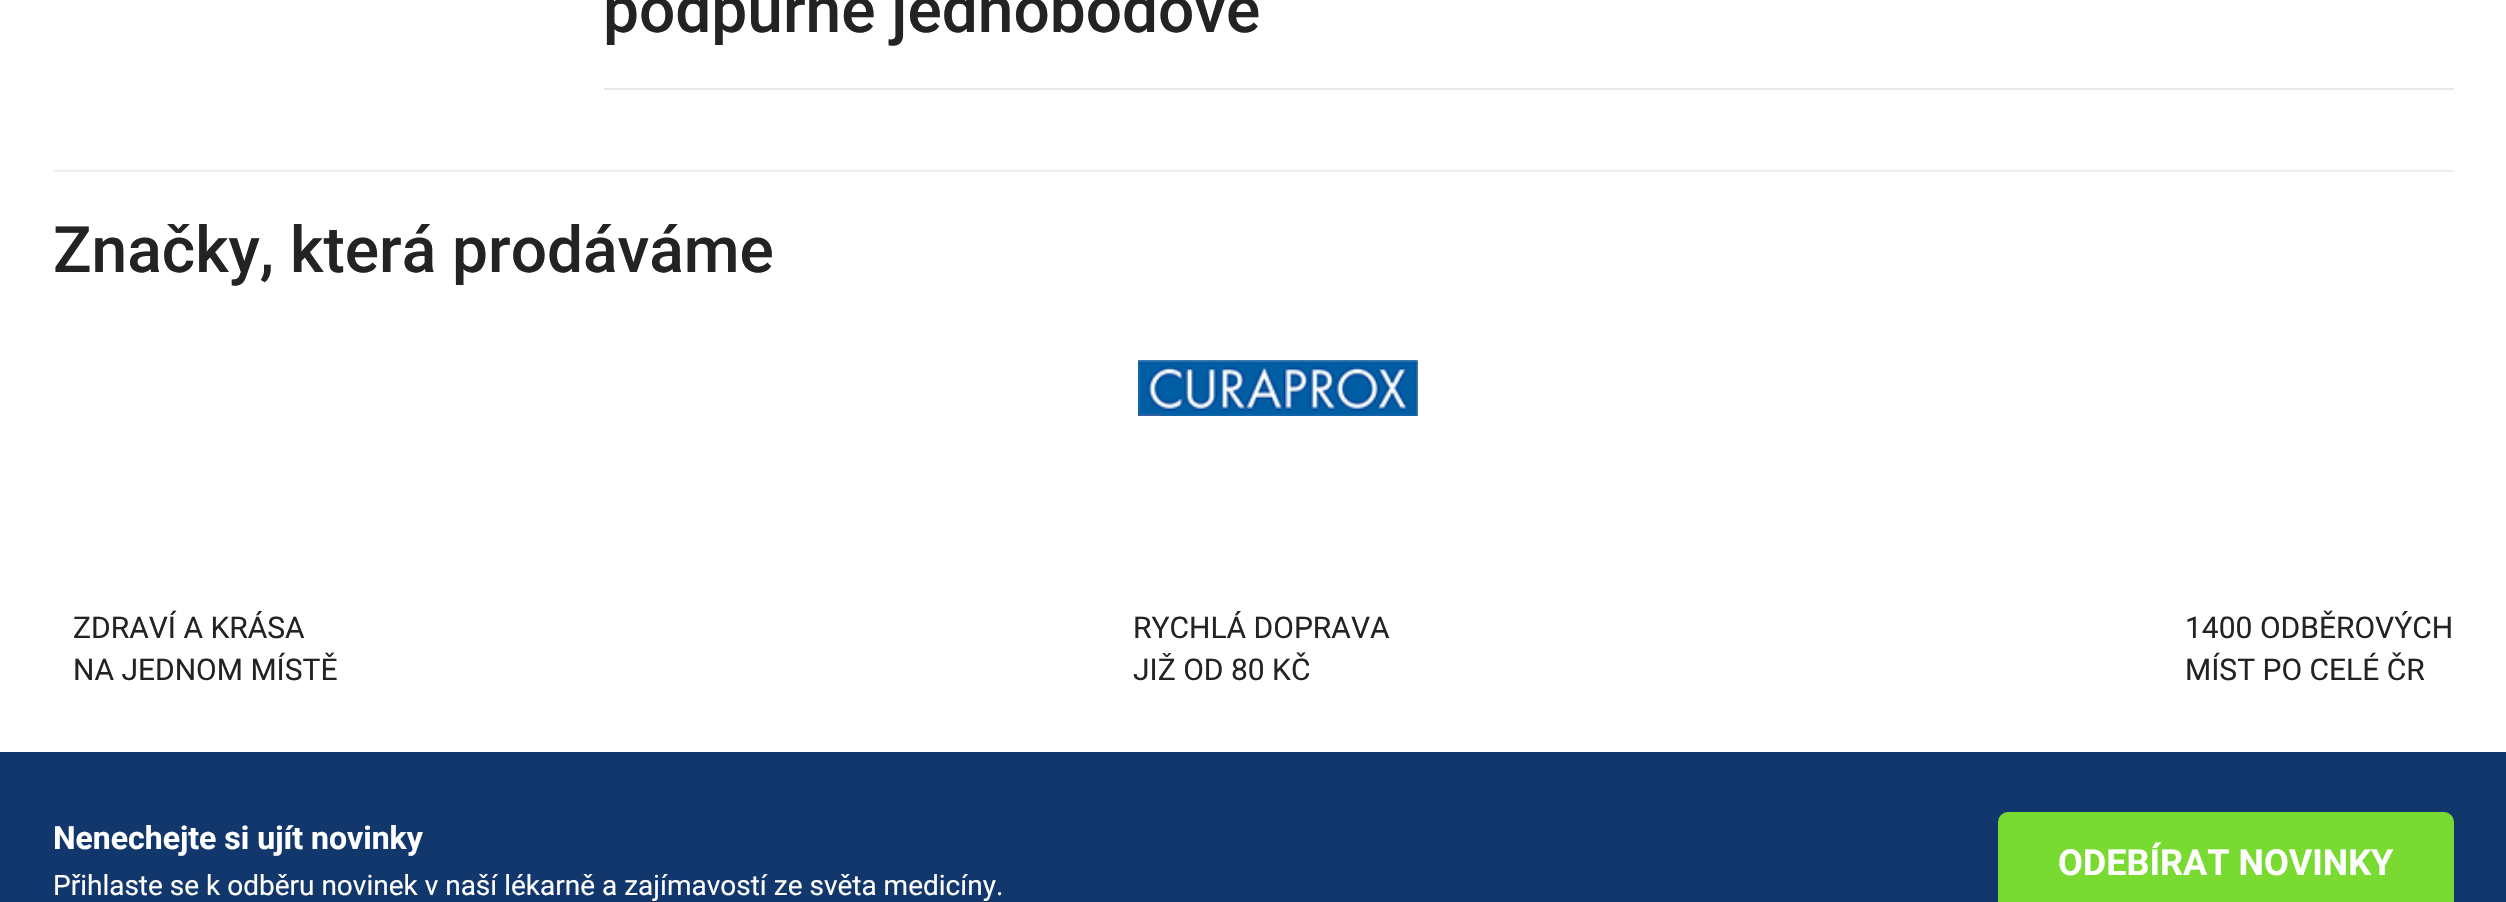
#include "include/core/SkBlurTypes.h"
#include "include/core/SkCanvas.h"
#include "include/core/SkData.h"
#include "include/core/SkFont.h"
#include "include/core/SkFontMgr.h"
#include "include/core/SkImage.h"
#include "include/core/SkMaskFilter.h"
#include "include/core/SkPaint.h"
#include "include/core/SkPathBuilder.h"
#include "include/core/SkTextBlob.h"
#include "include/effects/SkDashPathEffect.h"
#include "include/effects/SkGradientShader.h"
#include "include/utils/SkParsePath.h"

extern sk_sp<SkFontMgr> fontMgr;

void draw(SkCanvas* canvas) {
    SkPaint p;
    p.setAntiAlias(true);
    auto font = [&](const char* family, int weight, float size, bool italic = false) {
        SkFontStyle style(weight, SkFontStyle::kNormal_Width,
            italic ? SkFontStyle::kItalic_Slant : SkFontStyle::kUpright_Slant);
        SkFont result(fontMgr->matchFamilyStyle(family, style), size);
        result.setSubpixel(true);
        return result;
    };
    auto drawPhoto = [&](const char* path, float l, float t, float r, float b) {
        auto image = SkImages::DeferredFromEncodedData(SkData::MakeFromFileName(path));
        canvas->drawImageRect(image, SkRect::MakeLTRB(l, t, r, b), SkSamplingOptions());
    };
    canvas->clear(0xFFFFFFFF);
    auto font1 = font("Roboto", 500, 64);
    p.setColor(0xFF232323);
    canvas->drawString("podpůrné jednobodové", 603, 32, font1, p);
    p.setColor(0xFFE8E8E8);
    canvas->drawRect(SkRect::MakeLTRB(604, 88, 2454, 90), p);
    p.setColor(0xFFEEEEEE);
    canvas->drawRect(SkRect::MakeLTRB(54, 170, 2454, 172), p);
    p.setColor(0xFF232323);
    canvas->drawString("Značky, která prodáváme", 53, 272, font1, p);
    drawPhoto("media/1.png", 1138, 360, 1418, 416);
    auto font2 = font("Roboto", 400, 30);
    {
        const struct { const char* s; float x, y; } items[] = {
            {"ZDRAVÍ A KRÁSA", 73, 638},
            {"NA JEDNOM MÍSTĚ", 73, 680},
            {"RYCHLÁ DOPRAVA", 1133, 638},
            {"JIŽ OD 80 KČ", 1133, 680},
            {"1400 ODBĚROVÝCH", 2185, 638},
            {"MÍST PO CELÉ ČR", 2185, 680},
        };
        for (auto [s, x, y] : items) {
            canvas->drawString(s, x, y, font2, p);
        }
    }
    p.setColor(0xFF12376C);
    canvas->drawRect(SkRect::MakeLTRB(0, 752, 2506, 902), p);
    auto font3 = font("Roboto", 700, 32);
    p.setColor(0xFFFFFFFF);
    canvas->drawString("Nenechejte si ujít novinky", 53, 849, font3, p);
    auto font4 = font("Roboto", 400, 28);
    canvas->drawString("Přihlaste se k odběru novinek v naší lékarně a zajímavostí ze světa medicíny.", 53, 895, font4, p);
    p.setColor(0xFF79DB31);
    canvas->drawRoundRect(SkRect::MakeLTRB(1998, 812, 2454, 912), 10, 10, p);
    auto font5 = font("Roboto", 700, 36);
    p.setColor(0xFFFFFFFF);
    canvas->drawString("ODEBÍRAT NOVINKY", 2058, 875, font5, p);
}
